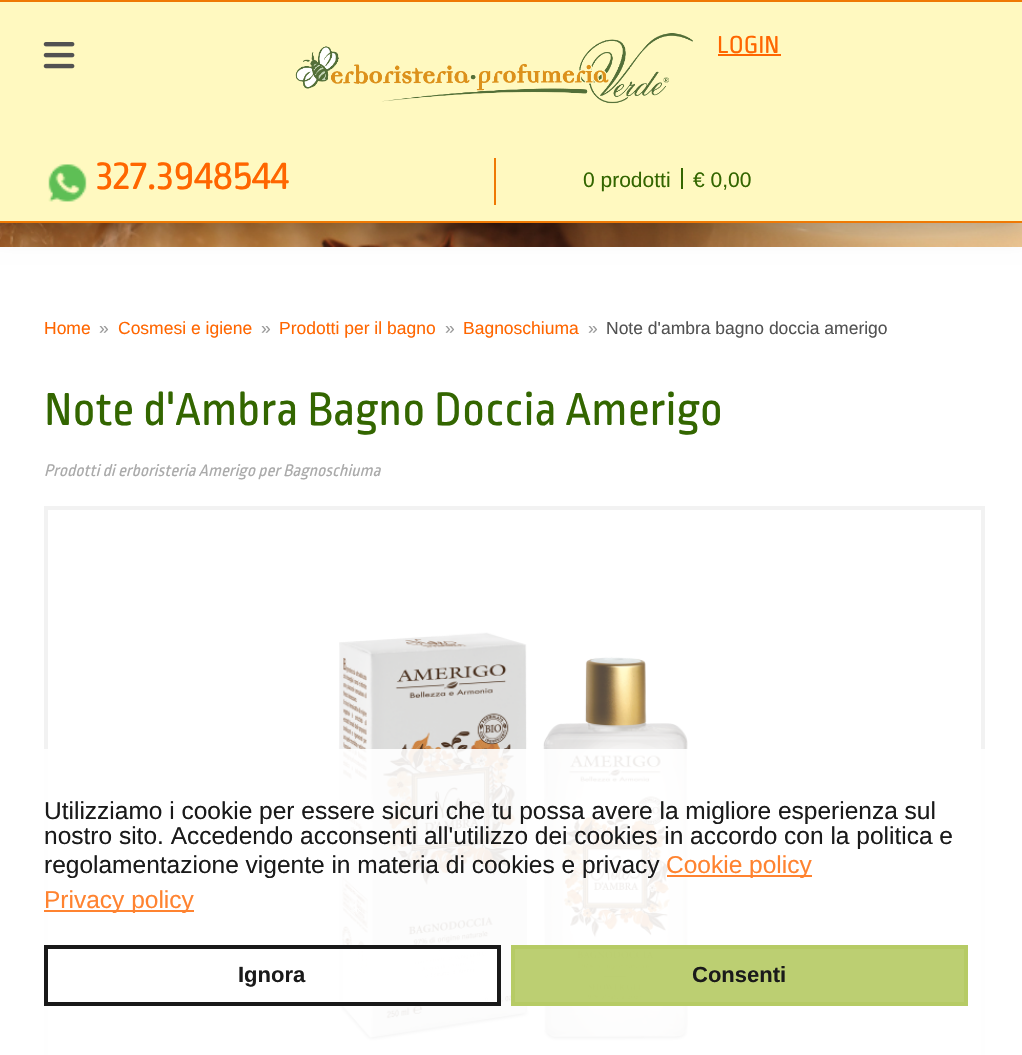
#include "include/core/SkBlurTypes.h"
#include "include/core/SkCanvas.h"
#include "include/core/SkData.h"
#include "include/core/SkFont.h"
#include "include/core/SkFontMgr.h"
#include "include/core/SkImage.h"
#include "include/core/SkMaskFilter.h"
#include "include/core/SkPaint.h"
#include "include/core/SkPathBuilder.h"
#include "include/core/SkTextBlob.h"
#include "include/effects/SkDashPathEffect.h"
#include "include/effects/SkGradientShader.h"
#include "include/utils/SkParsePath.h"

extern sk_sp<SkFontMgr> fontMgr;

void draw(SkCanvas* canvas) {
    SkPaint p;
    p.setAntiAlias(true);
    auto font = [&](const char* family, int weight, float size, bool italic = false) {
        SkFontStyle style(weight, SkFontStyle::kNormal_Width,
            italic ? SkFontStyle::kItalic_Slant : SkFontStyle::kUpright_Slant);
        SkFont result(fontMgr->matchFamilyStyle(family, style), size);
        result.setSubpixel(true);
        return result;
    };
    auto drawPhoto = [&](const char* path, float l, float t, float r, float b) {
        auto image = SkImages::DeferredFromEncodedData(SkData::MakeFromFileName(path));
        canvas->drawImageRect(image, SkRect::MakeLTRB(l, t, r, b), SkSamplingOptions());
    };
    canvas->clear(0xFFFFFFFF);
    drawPhoto("media/4.png", 0, 223, 1022, 247);
    p.setColor(0x4D000000);
    p.setMaskFilter(SkMaskFilter::MakeBlur(kNormal_SkBlurStyle, 13));
    canvas->drawRect(SkRect::MakeLTRB(-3, -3, 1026, 226), p);
    p.setMaskFilter(nullptr);
    {
        const struct { float l, t, r, b; SkColor color; } items[] = {
            {0, 2, 1022, 221, 0xFFFFF9C0},
            {0, 0, 1022, 2, 0xFFEF7904},
            {0, 221, 1022, 223, 0xFFEF7904},
        };
        for (auto [l, t, r, b, color] : items) {
            p.setColor(color);
            canvas->drawRect(SkRect::MakeLTRB(l, t, r, b), p);
        }
    }
    drawPhoto("media/1.png", 43, 42, 75, 69);
    drawPhoto("media/2.png", 295, 33, 693, 104);
    auto font1 = font("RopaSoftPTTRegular", 400, 26);
    p.setColor(0xFFFF6600);
    canvas->drawString("LOGIN", 717, 53, font1, p);
    canvas->drawRect(SkRect::MakeLTRB(718, 54, 781, 56), p);
    drawPhoto("media/3.png", 48, 164, 87, 202);
    auto font2 = font("RopaSoftPTTRegular", 400, 43.75f);
    canvas->drawString("327.3948544", 96, 189, font2, p);
    p.setColor(0xFFEF7904);
    canvas->drawRect(SkRect::MakeLTRB(494, 158, 496, 205), p);
    auto font3 = font("Liberation Sans", 400, 21);
    p.setColor(0xFF336600);
    canvas->drawString("0 prodotti", 583, 187, font3, p);
    canvas->drawRect(SkRect::MakeLTRB(681, 168, 683, 189), p);
    canvas->drawString("€ 0,00", 693, 187, font3, p);
    auto font4 = font("Liberation Sans", 400, 17.5f);
    p.setColor(0xFFFF6600);
    canvas->drawString("Home", 44, 334, font4, p);
    p.setColor(0xFF999999);
    canvas->drawString("»", 99, 334, font4, p);
    p.setColor(0xFFFF6600);
    canvas->drawString("Cosmesi e igiene", 118, 334, font4, p);
    p.setColor(0xFF999999);
    canvas->drawString("»", 261, 334, font4, p);
    p.setColor(0xFFFF6600);
    canvas->drawString("Prodotti per il bagno", 279, 334, font4, p);
    p.setColor(0xFF999999);
    canvas->drawString("»", 445, 334, font4, p);
    p.setColor(0xFFFF6600);
    canvas->drawString("Bagnoschiuma", 463, 334, font4, p);
    p.setColor(0xFF999999);
    canvas->drawString("»", 588, 334, font4, p);
    p.setColor(0xFF525252);
    canvas->drawString("Note d'ambra bagno doccia amerigo", 606, 334, font4, p);
    auto font5 = font("RopaSoftPTTRegular", 400, 49);
    p.setColor(0xFF336600);
    canvas->drawString("Note d'Ambra Bagno Doccia Amerigo", 44, 425, font5, p);
    auto font6 = font("RopaSoftPTTRegular", 400, 17.5f, true);
    p.setColor(0xFFAAAAAA);
    canvas->drawString("Prodotti di erboristeria Amerigo per Bagnoschiuma", 44, 476, font6, p);
    p.setStyle(SkPaint::kStroke_Style);
    p.setStrokeWidth(4);
    p.setColor(0xFFF2F2F2);
    canvas->drawRect(SkRect::MakeLTRB(46, 508, 983, 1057), p);
    drawPhoto("media/5.png", 338, 632, 689, 1042);
    p.setStyle(SkPaint::kFill_Style);
    p.setColor(0xE6FFFFFF);
    canvas->drawRect(SkRect::MakeLTRB(44, 749, 985, 1055), p);
    auto font7 = font("Liberation Sans", 400, 24.5f);
    p.setColor(0xFF1A1A1A);
    {
        const struct { const char* s; float x, y; } items[] = {
            {"Utilizziamo i cookie per essere sicuri che tu possa avere la migliore esperienza sul", 44, 819},
            {"nostro sito. Accedendo acconsenti all'utilizzo dei cookies in accordo con la politica e", 44, 844},
            {"regolamentazione vigente in materia di cookies e privacy", 44, 873},
        };
        for (auto [s, x, y] : items) {
            canvas->drawString(s, x, y, font7, p);
        }
    }
    p.setColor(0xCFFF6600);
    canvas->drawRect(SkRect::MakeLTRB(667, 875, 812, 877), p);
    p.setColor(0xFFFF8330);
    canvas->drawString("Cookie policy", 666, 873, font7, p);
    canvas->drawRect(SkRect::MakeLTRB(44, 910, 194, 912), p);
    canvas->drawString("Privacy policy", 44, 908, font7, p);
    p.setColor(0xE6FFFFFF);
    canvas->drawRect(SkRect::MakeLTRB(343, 949, 497, 1002), p);
    p.setStyle(SkPaint::kStroke_Style);
    p.setColor(0xFF191919);
    canvas->drawRect(SkRect::MakeLTRB(46, 947, 499, 1004), p);
    auto font8 = font("Liberation Sans", 700, 22);
    p.setStyle(SkPaint::kFill_Style);
    p.setColor(0xFF1A1A1A);
    canvas->drawString("Ignora", 238, 982, font8, p);
    p.setColor(0xE6B5CA63);
    canvas->drawRect(SkRect::MakeLTRB(513, 947, 966, 1004), p);
    p.setStyle(SkPaint::kStroke_Style);
    p.setColor(0xFFB6CB65);
    canvas->drawRect(SkRect::MakeLTRB(513, 947, 966, 1004), p);
    p.setStyle(SkPaint::kFill_Style);
    p.setColor(0xFF1A1A1A);
    canvas->drawString("Consenti", 692, 982, font8, p);
}
